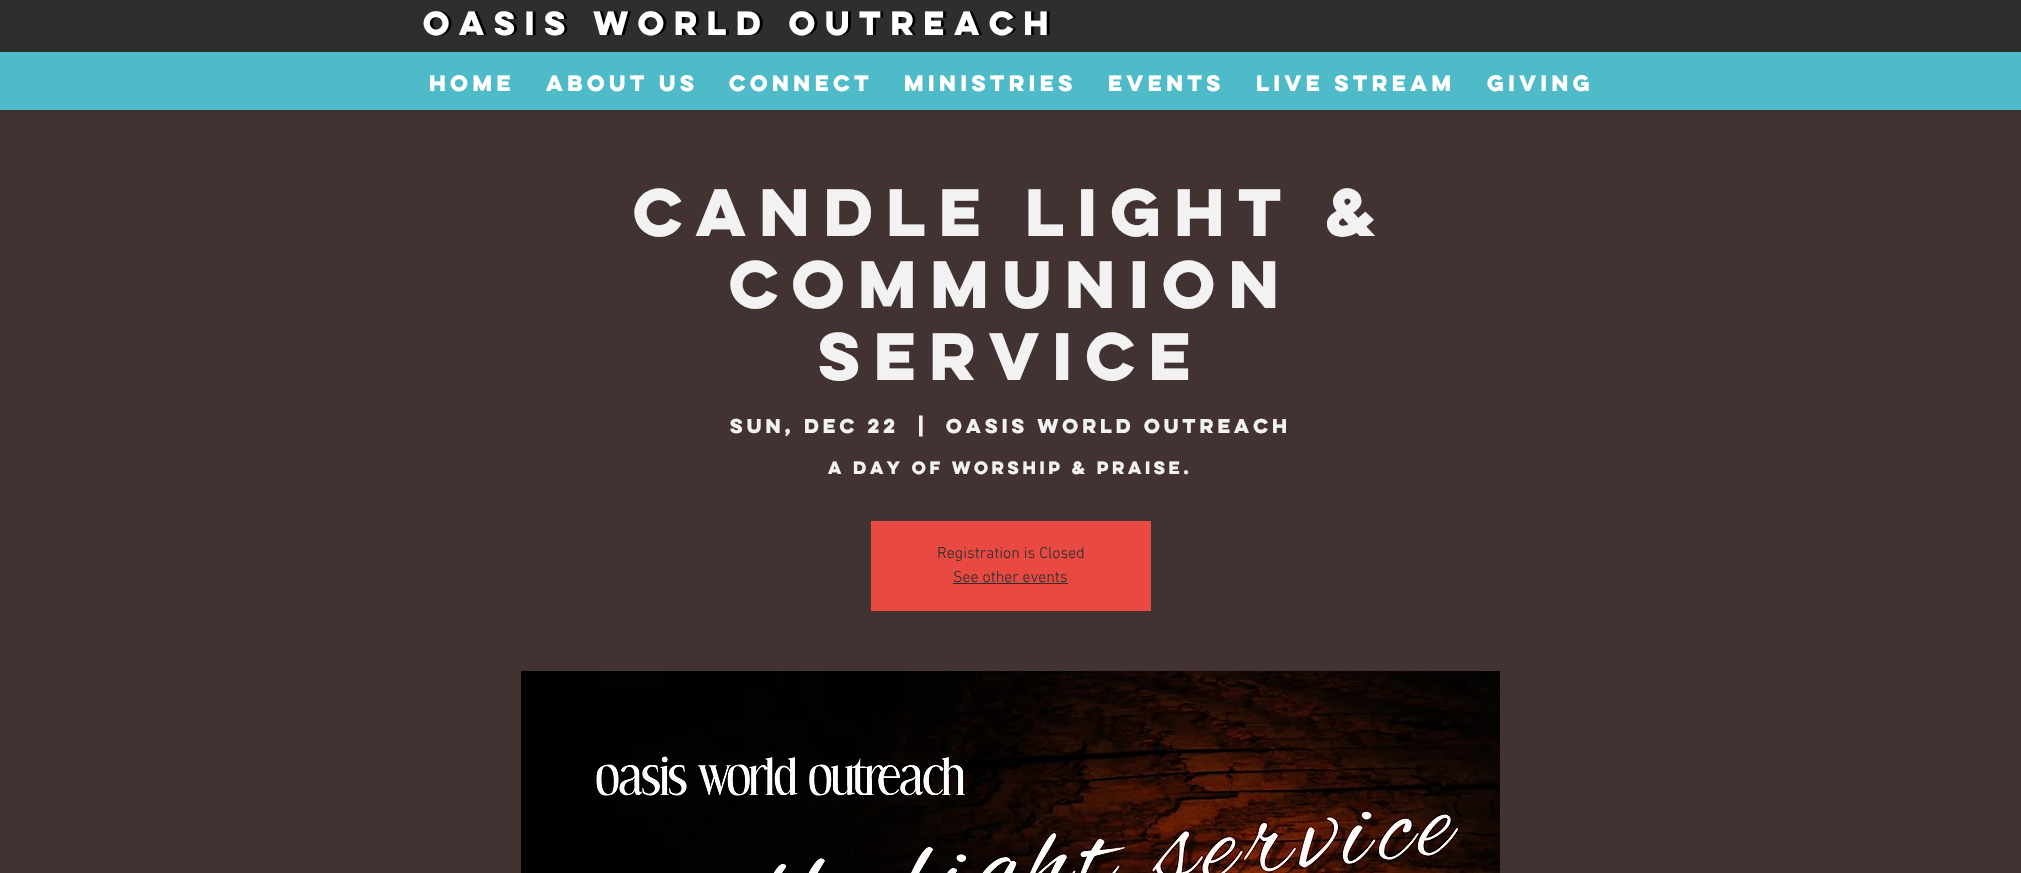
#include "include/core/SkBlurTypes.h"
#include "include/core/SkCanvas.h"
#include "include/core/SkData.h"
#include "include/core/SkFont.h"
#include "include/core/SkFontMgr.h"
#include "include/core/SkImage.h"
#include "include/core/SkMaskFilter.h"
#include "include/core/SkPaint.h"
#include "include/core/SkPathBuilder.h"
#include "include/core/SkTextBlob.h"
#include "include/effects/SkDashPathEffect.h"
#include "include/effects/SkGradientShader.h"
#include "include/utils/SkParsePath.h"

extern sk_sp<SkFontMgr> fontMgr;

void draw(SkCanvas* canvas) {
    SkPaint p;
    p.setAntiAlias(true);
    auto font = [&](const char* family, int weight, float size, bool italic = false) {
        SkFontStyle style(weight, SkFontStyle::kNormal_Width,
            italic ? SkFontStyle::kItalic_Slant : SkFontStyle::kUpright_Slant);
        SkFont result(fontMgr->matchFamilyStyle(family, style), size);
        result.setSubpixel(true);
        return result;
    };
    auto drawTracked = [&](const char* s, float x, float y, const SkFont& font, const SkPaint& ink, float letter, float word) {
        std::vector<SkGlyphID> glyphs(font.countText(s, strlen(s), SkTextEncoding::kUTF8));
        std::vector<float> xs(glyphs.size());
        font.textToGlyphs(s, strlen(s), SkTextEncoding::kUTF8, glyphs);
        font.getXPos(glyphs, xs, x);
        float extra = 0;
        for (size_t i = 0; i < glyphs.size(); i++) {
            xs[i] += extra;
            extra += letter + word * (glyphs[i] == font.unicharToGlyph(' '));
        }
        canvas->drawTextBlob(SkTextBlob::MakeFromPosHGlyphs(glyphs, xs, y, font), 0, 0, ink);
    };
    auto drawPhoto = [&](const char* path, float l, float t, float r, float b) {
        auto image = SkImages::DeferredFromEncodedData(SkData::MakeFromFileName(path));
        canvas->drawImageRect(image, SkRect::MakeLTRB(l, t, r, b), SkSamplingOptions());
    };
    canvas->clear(0xFF2F2E2E);
    auto font1 = font("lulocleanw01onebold", 700, 30);
    p.setColor(0xFF000000);
    drawTracked("OASIS WORLD OUTREACH", 426, 35, font1, p, 3, 0);
    p.setColor(0xFFFFFFFF);
    drawTracked("OASIS WORLD OUTREACH", 423, 35, font1, p, 3, 0);
    p.setColor(0xFF4FBBC9);
    canvas->drawRect(SkRect::MakeLTRB(0, 52, 2021, 110), p);
    auto font2 = font("lulocleanw01onebold", 700, 20);
    p.setColor(0xFFFFFFFF);
    {
        const struct { const char* s; float x, y; } items[] = {
            {"HOME", 429, 91},
            {"ABOUT US", 546, 91},
            {"CONNECT", 729, 91},
            {"MINISTRIES", 904, 91},
            {"EVENTS", 1108, 91},
            {"LIVE STREAM", 1256, 91},
            {"GIVING", 1487, 91},
        };
        for (auto [s, x, y] : items) {
            canvas->drawString(s, x, y, font2, p);
        }
    }
    p.setColor(0xFF423231);
    canvas->drawRect(SkRect::MakeLTRB(0, 110, 2021, 873), p);
    auto font3 = font("lulocleanw01onebold", 700, 60);
    p.setColor(0xFFF2F2F2);
    {
        const struct { const char* s; float x, y; } items[] = {
            {"CANDLE LIGHT &", 633, 236},
            {"COMMUNION", 729, 308},
            {"SERVICE", 818, 380},
        };
        for (auto [s, x, y] : items) {
            canvas->drawString(s, x, y, font3, p);
        }
    }
    auto font4 = font("lulocleanw01onebold", 700, 18);
    {
        const struct { const char* s; float x, y; } items[] = {
            {"Sun, Dec 22", 730, 433},
            {"|", 918, 433},
            {"Oasis World Outreach", 946, 433},
        };
        for (auto [s, x, y] : items) {
            canvas->drawString(s, x, y, font4, p);
        }
    }
    auto font5 = font("lulocleanw01onebold", 700, 16);
    canvas->drawString("A DAY OF WORSHIP & PRAISE.", 828, 474, font5, p);
    p.setColor(0xFFE84A43);
    canvas->drawRect(SkRect::MakeLTRB(871, 521, 1151, 611), p);
    auto font6 = font("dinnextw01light", 300, 16);
    p.setColor(0xFF2F2E2E);
    canvas->drawString("Registration is Closed", 937, 558, font6, p);
    canvas->drawString("See other events", 953, 582, font6, p);
    canvas->drawRect(SkRect::MakeLTRB(953, 583, 1068, 584), p);
    drawPhoto("media/1.png", 521, 671, 1500, 873);
}
